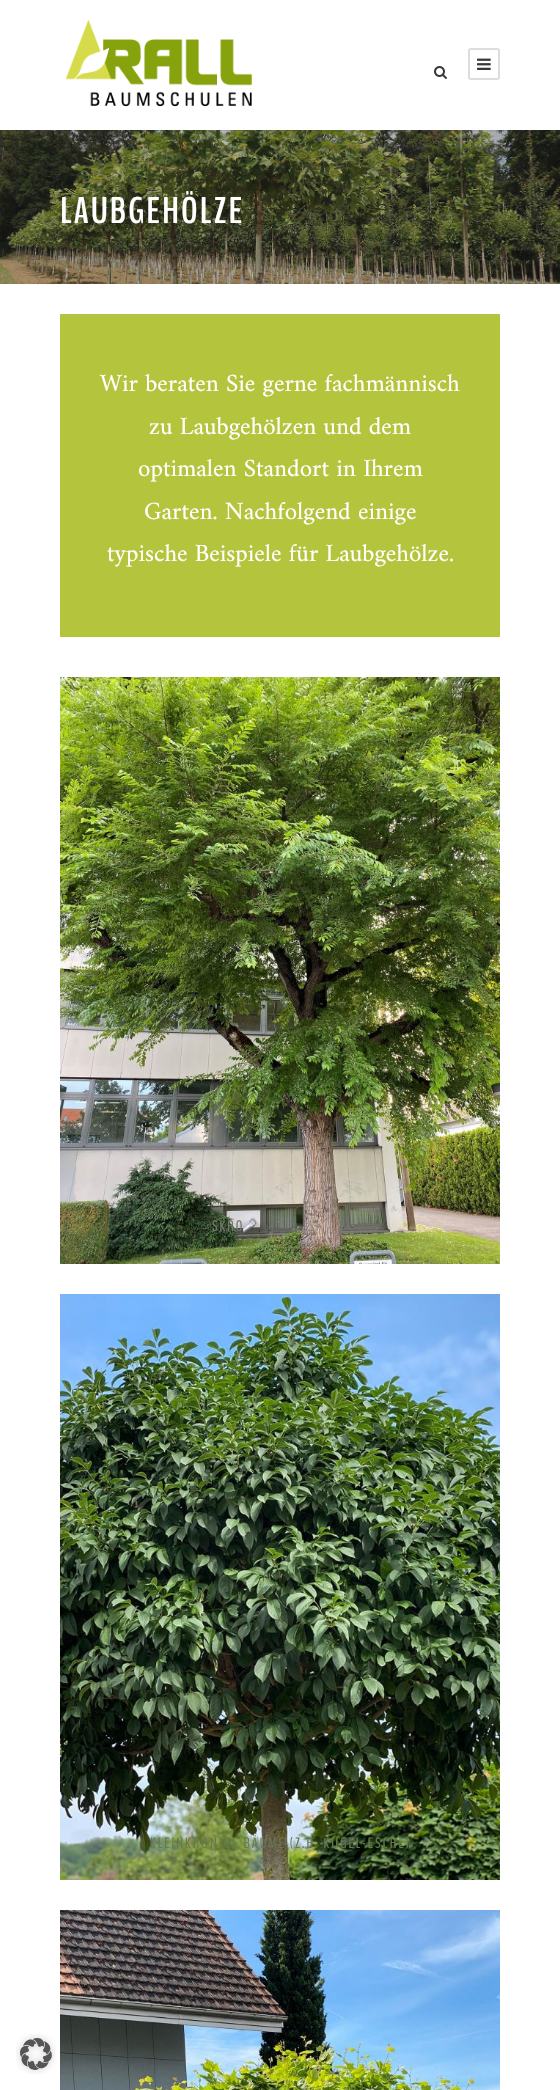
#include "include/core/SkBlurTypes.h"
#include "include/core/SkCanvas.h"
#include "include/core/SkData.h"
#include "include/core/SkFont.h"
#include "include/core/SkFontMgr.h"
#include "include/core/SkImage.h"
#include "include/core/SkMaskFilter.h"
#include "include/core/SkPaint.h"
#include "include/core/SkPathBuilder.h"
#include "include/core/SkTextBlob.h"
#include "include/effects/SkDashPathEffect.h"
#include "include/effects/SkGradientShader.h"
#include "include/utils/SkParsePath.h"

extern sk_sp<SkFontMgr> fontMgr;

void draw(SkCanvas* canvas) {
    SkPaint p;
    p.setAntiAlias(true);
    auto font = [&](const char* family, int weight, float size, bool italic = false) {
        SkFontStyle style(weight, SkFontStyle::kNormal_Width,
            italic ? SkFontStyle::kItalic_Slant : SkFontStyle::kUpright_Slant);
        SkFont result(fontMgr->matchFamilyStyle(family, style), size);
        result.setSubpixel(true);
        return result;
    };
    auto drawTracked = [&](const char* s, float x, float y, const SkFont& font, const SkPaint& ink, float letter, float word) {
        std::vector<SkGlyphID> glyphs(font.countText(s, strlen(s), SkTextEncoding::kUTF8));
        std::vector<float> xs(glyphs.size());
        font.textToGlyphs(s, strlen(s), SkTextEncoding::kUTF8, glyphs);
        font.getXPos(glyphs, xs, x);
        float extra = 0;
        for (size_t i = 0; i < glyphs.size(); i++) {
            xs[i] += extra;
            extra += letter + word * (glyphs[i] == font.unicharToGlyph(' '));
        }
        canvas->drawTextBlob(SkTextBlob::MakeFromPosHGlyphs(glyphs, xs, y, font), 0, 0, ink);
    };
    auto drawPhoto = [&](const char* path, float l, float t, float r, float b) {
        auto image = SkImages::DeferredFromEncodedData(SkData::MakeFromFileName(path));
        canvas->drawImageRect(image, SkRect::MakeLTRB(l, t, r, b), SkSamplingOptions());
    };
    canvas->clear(0xFFFFFFFF);
    drawPhoto("media/4.png", 0, 130, 560, 284);
    canvas->save();
    canvas->clipRect(SkRect::MakeLTRB(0, 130, 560, 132));
    p.setColor(0x1A000000);
    p.setMaskFilter(SkMaskFilter::MakeBlur(kNormal_SkBlurStyle, 1));
    canvas->drawRect(SkRect::MakeLTRB(0, 1, 560, 131), p);
    p.setMaskFilter(nullptr);
    canvas->restore();
    drawPhoto("media/1.png", 65, 19, 252, 107);
    drawPhoto("media/2.png", 434, 66, 447, 79);
    p.setStyle(SkPaint::kStroke_Style);
    p.setStrokeWidth(2);
    p.setColor(0xFFDDDDDD);
    canvas->drawRoundRect(SkRect::MakeLTRB(469, 49, 499, 79), 2, 2, p);
    drawPhoto("media/3.png", 477, 58, 491, 70);
    auto font1 = font("BenchNine", 700, 37);
    p.setStyle(SkPaint::kFill_Style);
    p.setColor(0xFFFFFFFF);
    drawTracked("LAUBGEHÖLZE", 60, 223, font1, p, 2, 0);
    p.setColor(0xFFB4C43C);
    canvas->drawRect(SkRect::MakeLTRB(60, 314, 500, 637), p);
    auto font2 = font("Amiri", 400, 25);
    p.setColor(0xFFFFFFFF);
    {
        const struct { const char* s; float x, y; } items[] = {
            {"Wir beraten Sie gerne fachmännisch", 100, 391},
            {"zu Laubgehölzen und dem", 149, 434},
            {"optimalen Standort in Ihrem", 138, 476},
            {"Garten. Nachfolgend einige", 144, 519},
            {"typische Beispiele für Laubgehölze.", 107, 561},
        };
        for (auto [s, x, y] : items) {
            canvas->drawString(s, x, y, font2, p);
        }
    }
    drawPhoto("media/5.png", 60, 677, 500, 1264);
    auto font3 = font("BenchNine", 400, 15);
    p.setColor(0xFF77786F);
    drawTracked("SKRO", 212, 1231, font3, p, 2, -1);
    drawPhoto("media/6.png", 60, 1294, 500, 1880);
    p.setColor(0xFF66794F);
    drawTracked("KLEINKRONIGE BÄUME (Z.B. KUGEL-ESCHE)", 150, 1848, font3, p, 2, 0);
    drawPhoto("media/7.png", 60, 1910, 500, 2090);
    drawPhoto("media/8.png", 16, 2034, 56, 2074);
}
